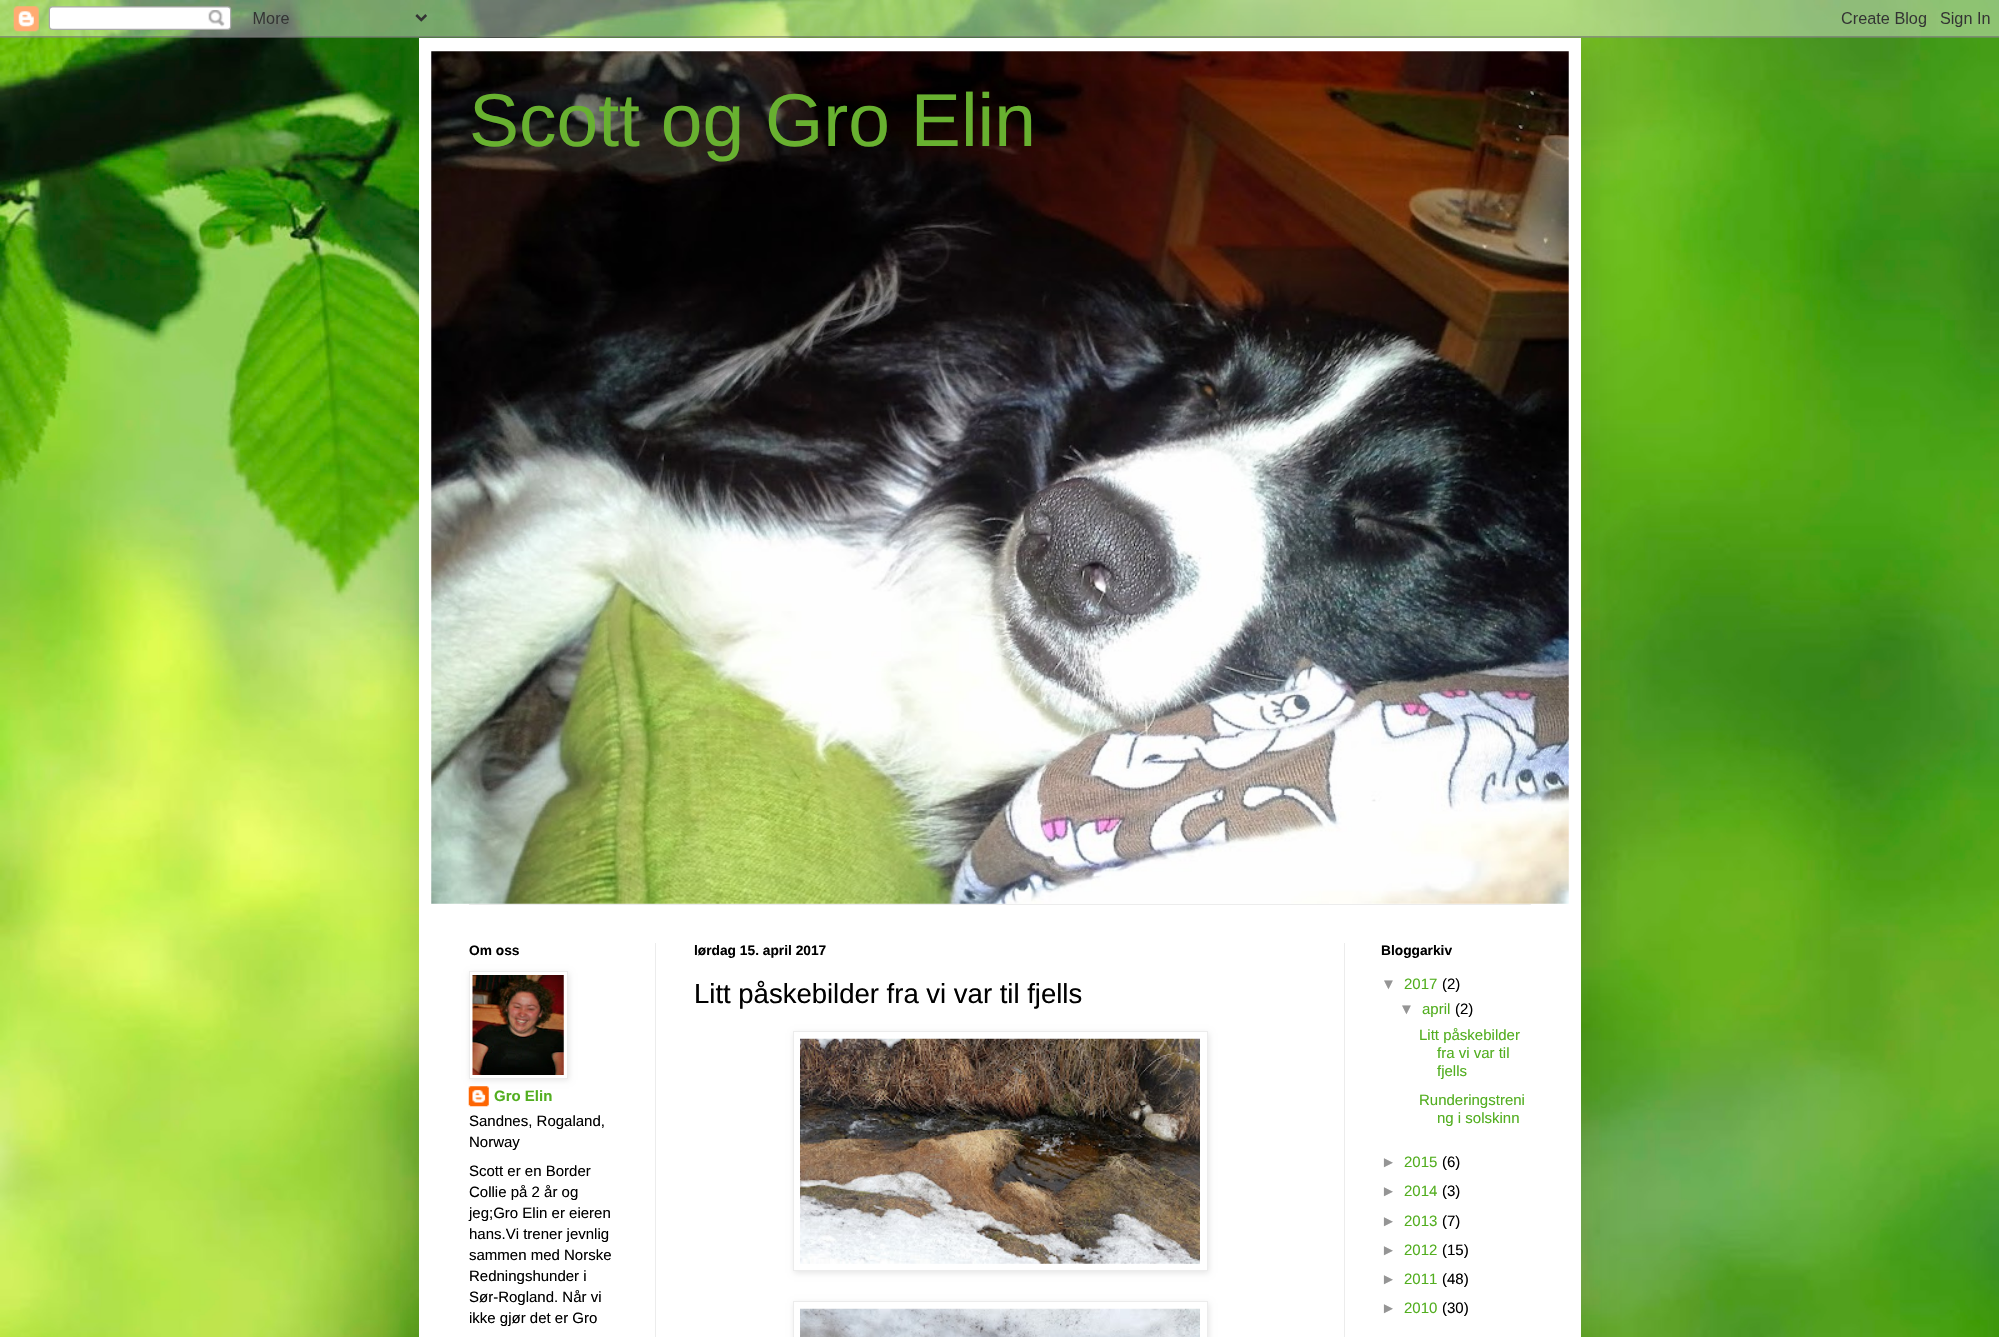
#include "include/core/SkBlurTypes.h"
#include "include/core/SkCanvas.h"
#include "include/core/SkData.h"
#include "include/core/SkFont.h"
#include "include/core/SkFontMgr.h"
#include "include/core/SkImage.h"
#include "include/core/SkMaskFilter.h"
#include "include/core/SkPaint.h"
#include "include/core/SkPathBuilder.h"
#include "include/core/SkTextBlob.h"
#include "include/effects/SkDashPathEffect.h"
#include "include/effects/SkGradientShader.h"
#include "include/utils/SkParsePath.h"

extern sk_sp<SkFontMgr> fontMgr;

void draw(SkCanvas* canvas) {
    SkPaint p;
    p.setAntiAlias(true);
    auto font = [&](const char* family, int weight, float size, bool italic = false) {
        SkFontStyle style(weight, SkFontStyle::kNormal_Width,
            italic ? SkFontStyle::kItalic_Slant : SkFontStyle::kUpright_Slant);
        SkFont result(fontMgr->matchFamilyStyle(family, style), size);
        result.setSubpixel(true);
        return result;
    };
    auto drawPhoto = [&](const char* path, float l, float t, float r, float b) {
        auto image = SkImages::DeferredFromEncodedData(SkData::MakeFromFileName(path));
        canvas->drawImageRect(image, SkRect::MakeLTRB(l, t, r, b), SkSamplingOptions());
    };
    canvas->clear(0xFFFFFFFF);
    drawPhoto("media/1.png", 0, 0, 1999, 1337);
    p.setColor(0x26000000);
    p.setMaskFilter(SkMaskFilter::MakeBlur(kNormal_SkBlurStyle, 25));
    canvas->drawRect(SkRect::MakeLTRB(419, 38, 1581, 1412), p);
    p.setMaskFilter(nullptr);
    drawPhoto("media/2.png", 0, 0, 1999, 38);
    p.setColor(0xFFFFFFFF);
    canvas->drawRect(SkRect::MakeLTRB(419, 38, 1581, 1337), p);
    drawPhoto("media/3.png", 431, 51, 1569, 904);
    auto font1 = font("Liberation Sans", 400, 75);
    p.setColor(0xFF68B130);
    canvas->drawString("Scott og Gro Elin", 469, 146, font1, p);
    {
        const struct { float l, t, r, b; SkColor color; } items[] = {
            {469, 904, 1531, 905, 0xFFECECEC},
            {655, 943, 656, 1337, 0xFFECECEC},
            {1344, 943, 1345, 1337, 0xFFECECEC},
        };
        for (auto [l, t, r, b, color] : items) {
            p.setColor(color);
            canvas->drawRect(SkRect::MakeLTRB(l, t, r, b), p);
        }
    }
    auto font2 = font("Liberation Sans", 700, 13.75f);
    p.setColor(0xFF000000);
    canvas->drawString("Om oss", 469, 955, font2, p);
    drawPhoto("media/5.png", 468, 1086, 489, 1107);
    p.setColor(0x1A000000);
    p.setMaskFilter(SkMaskFilter::MakeBlur(kNormal_SkBlurStyle, 3));
    canvas->drawRect(SkRect::MakeLTRB(470, 973, 569, 1080), p);
    p.setMaskFilter(nullptr);
    p.setColor(0xFFFFFFFF);
    canvas->drawRect(SkRect::MakeLTRB(469.5f, 971.5f, 567.5f, 1078.5f), p);
    p.setStyle(SkPaint::kStroke_Style);
    p.setStrokeWidth(1);
    p.setColor(0xFFECECEC);
    canvas->drawRect(SkRect::MakeLTRB(469.5f, 971.5f, 567.5f, 1078.5f), p);
    drawPhoto("media/4.png", 472, 975, 564, 1075);
    auto font3 = font("Liberation Sans", 700, 15);
    p.setStyle(SkPaint::kFill_Style);
    p.setColor(0xFF52AE1F);
    canvas->drawString("Gro Elin", 494, 1101, font3, p);
    auto font4 = font("Liberation Sans", 400, 15);
    p.setColor(0xFF000000);
    {
        const struct { const char* s; float x, y; } items[] = {
            {"Sandnes, Rogaland,", 469, 1126},
            {"Norway", 469, 1147},
            {"Scott er en Border", 469, 1176},
            {"Collie på 2 år og", 469, 1197},
            {"jeg;Gro Elin er eieren", 469, 1218},
            {"hans.Vi trener jevnlig", 469, 1239},
            {"sammen med Norske", 469, 1260},
            {"Redningshunder i", 469, 1281},
            {"Sør-Rogland. Når vi", 469, 1302},
            {"ikke gjør det er Gro", 469, 1323},
        };
        for (auto [s, x, y] : items) {
            canvas->drawString(s, x, y, font4, p);
        }
    }
    canvas->drawString("lørdag 15. april 2017", 694, 955, font2, p);
    auto font5 = font("Liberation Sans", 400, 27.5f);
    canvas->drawString("Litt påskebilder fra vi var til fjells", 694, 1003, font5, p);
    p.setColor(0x1A000000);
    p.setMaskFilter(SkMaskFilter::MakeBlur(kNormal_SkBlurStyle, 3));
    canvas->drawRect(SkRect::MakeLTRB(794, 1033, 1209, 1273), p);
    p.setMaskFilter(nullptr);
    p.setColor(0xFFFFFFFF);
    canvas->drawRect(SkRect::MakeLTRB(793.5f, 1031.5f, 1207.5f, 1270.5f), p);
    p.setStyle(SkPaint::kStroke_Style);
    p.setColor(0xFFECECEC);
    canvas->drawRect(SkRect::MakeLTRB(793.5f, 1031.5f, 1207.5f, 1270.5f), p);
    drawPhoto("media/6.png", 800, 1038, 1200, 1264);
    p.setStyle(SkPaint::kFill_Style);
    p.setColor(0x1A000000);
    p.setMaskFilter(SkMaskFilter::MakeBlur(kNormal_SkBlurStyle, 3));
    canvas->drawRect(SkRect::MakeLTRB(794, 1303, 1209, 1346), p);
    p.setMaskFilter(nullptr);
    p.setColor(0xFFFFFFFF);
    canvas->drawRect(SkRect::MakeLTRB(793.5f, 1301.5f, 1207.5f, 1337.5f), p);
    p.setStyle(SkPaint::kStroke_Style);
    p.setColor(0xFFECECEC);
    canvas->drawRect(SkRect::MakeLTRB(793.5f, 1301.5f, 1207.5f, 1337.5f), p);
    drawPhoto("media/7.png", 800, 1308, 1200, 1337);
    p.setStyle(SkPaint::kFill_Style);
    p.setColor(0xFF000000);
    canvas->drawString("Bloggarkiv", 1381, 955, font2, p);
    p.setColor(0xFF959595);
    canvas->drawString("▼", 1381, 989, font4, p);
    p.setColor(0xFF52AE1F);
    canvas->drawString("2017", 1404, 989, font4, p);
    p.setColor(0xFF000000);
    canvas->drawString("(2)", 1442, 989, font4, p);
    p.setColor(0xFF959595);
    canvas->drawString("▼", 1399, 1014, font4, p);
    p.setColor(0xFF52AE1F);
    canvas->drawString("april", 1422, 1014, font4, p);
    p.setColor(0xFF000000);
    canvas->drawString("(2)", 1455, 1014, font4, p);
    p.setColor(0xFF52AE1F);
    {
        const struct { const char* s; float x, y; } items[] = {
            {"Litt påskebilder", 1419, 1040},
            {"fra vi var til", 1437, 1058},
            {"fjells", 1437, 1076},
            {"Runderingstreni", 1419, 1105},
            {"ng i solskinn", 1437, 1123},
        };
        for (auto [s, x, y] : items) {
            canvas->drawString(s, x, y, font4, p);
        }
    }
    p.setColor(0xFF959595);
    canvas->drawString("►", 1381, 1167, font4, p);
    p.setColor(0xFF52AE1F);
    canvas->drawString("2015", 1404, 1167, font4, p);
    p.setColor(0xFF000000);
    canvas->drawString("(6)", 1442, 1167, font4, p);
    p.setColor(0xFF959595);
    canvas->drawString("►", 1381, 1196, font4, p);
    p.setColor(0xFF52AE1F);
    canvas->drawString("2014", 1404, 1196, font4, p);
    p.setColor(0xFF000000);
    canvas->drawString("(3)", 1442, 1196, font4, p);
    p.setColor(0xFF959595);
    canvas->drawString("►", 1381, 1226, font4, p);
    p.setColor(0xFF52AE1F);
    canvas->drawString("2013", 1404, 1226, font4, p);
    p.setColor(0xFF000000);
    canvas->drawString("(7)", 1442, 1226, font4, p);
    p.setColor(0xFF959595);
    canvas->drawString("►", 1381, 1255, font4, p);
    p.setColor(0xFF52AE1F);
    canvas->drawString("2012", 1404, 1255, font4, p);
    p.setColor(0xFF000000);
    canvas->drawString("(15)", 1442, 1255, font4, p);
    p.setColor(0xFF959595);
    canvas->drawString("►", 1381, 1284, font4, p);
    p.setColor(0xFF52AE1F);
    canvas->drawString("2011", 1404, 1284, font4, p);
    p.setColor(0xFF000000);
    canvas->drawString("(48)", 1442, 1284, font4, p);
    p.setColor(0xFF959595);
    canvas->drawString("►", 1381, 1313, font4, p);
    p.setColor(0xFF52AE1F);
    canvas->drawString("2010", 1404, 1313, font4, p);
    p.setColor(0xFF000000);
    canvas->drawString("(30)", 1442, 1313, font4, p);
}
